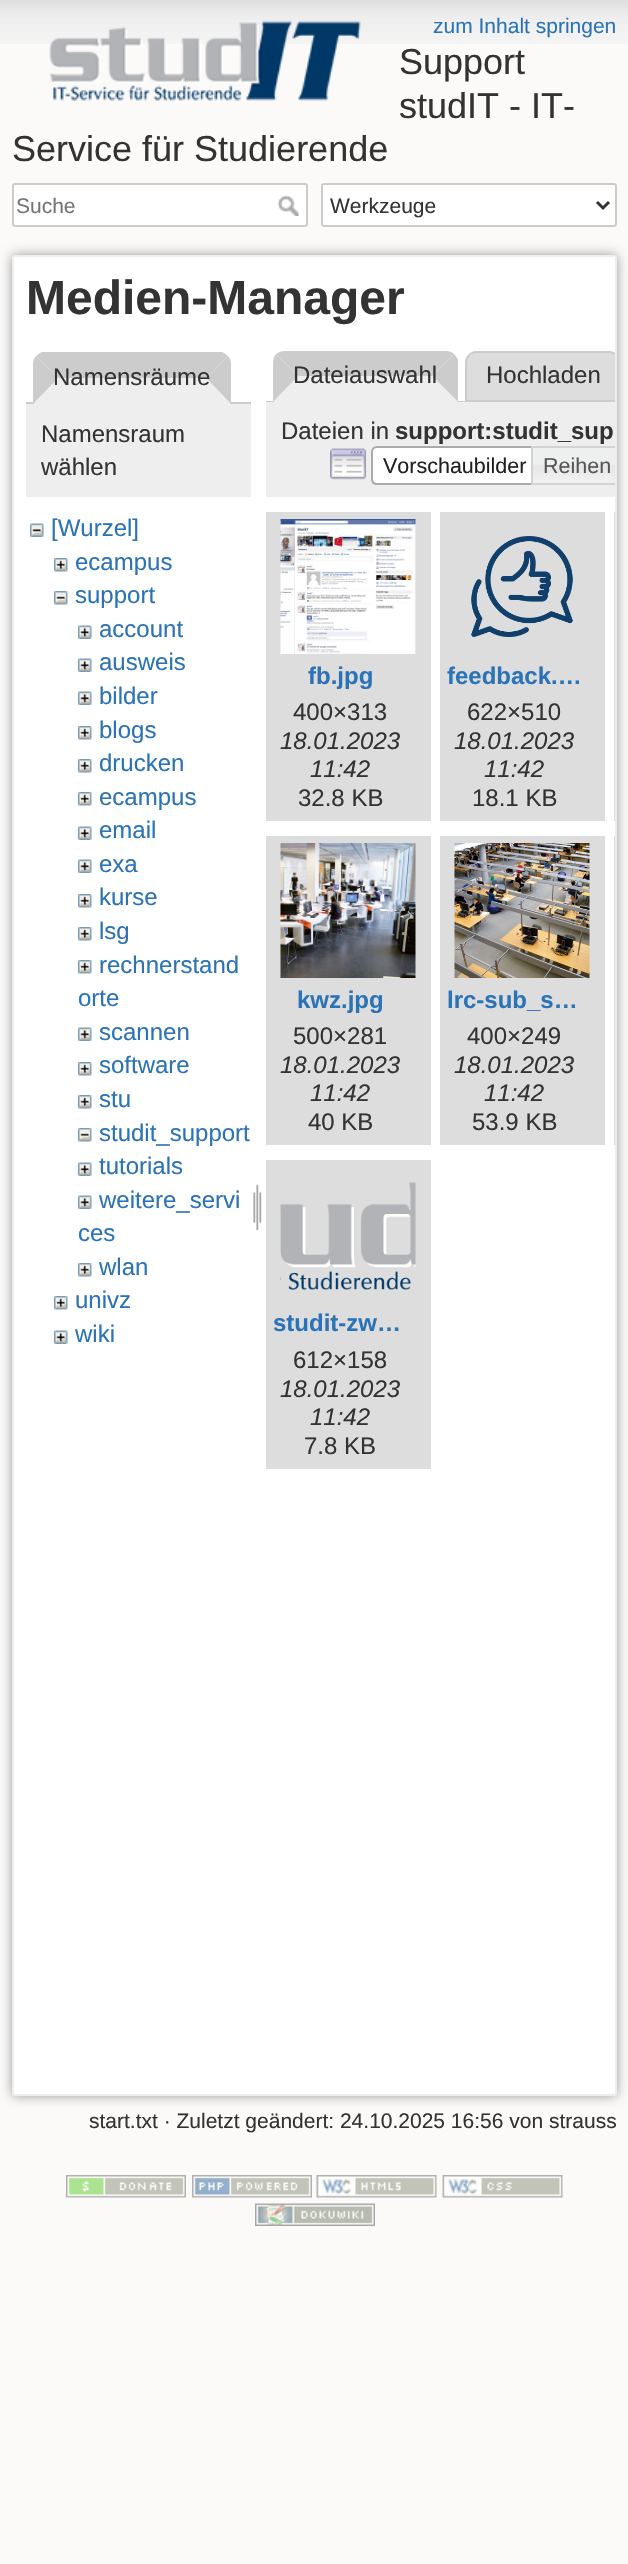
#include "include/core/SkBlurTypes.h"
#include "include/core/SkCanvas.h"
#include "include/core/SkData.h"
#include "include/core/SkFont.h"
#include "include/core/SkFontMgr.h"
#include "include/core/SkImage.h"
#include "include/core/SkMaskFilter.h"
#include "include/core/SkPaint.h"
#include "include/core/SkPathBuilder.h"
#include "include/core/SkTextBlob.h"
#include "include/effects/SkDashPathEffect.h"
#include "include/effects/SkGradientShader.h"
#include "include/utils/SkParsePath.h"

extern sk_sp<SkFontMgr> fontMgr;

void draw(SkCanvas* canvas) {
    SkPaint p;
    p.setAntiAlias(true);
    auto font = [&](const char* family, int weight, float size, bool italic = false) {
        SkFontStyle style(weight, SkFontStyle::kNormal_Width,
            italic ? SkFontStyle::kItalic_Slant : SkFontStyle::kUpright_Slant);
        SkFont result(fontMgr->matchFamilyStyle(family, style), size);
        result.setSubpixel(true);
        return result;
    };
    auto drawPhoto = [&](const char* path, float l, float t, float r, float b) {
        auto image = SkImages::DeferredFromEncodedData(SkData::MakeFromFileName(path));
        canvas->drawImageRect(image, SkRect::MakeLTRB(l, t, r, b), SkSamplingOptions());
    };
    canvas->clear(0xFFFBFAF9);
    drawPhoto("media/1.png", 0, 0, 628, 44);
    auto font1 = font("Liberation Sans", 400, 21);
    p.setColor(0xFF2B73B7);
    canvas->drawString("zum Inhalt springen", 433, 33, font1, p);
    drawPhoto("media/2.png", 49, 20, 361, 101);
    auto font2 = font("Liberation Sans", 400, 36);
    p.setColor(0xFF333333);
    {
        const struct { const char* s; float x, y; } items[] = {
            {"Support", 399, 74},
            {"studIT - IT-", 399, 118},
            {"Service für Studierende", 12, 161},
        };
        for (auto [s, x, y] : items) {
            canvas->drawString(s, x, y, font2, p);
        }
    }
    p.setColor(0xFFFFFFFF);
    canvas->drawRoundRect(SkRect::MakeLTRB(13, 184, 307, 226), 2, 2, p);
    p.setStyle(SkPaint::kStroke_Style);
    p.setStrokeWidth(2);
    p.setColor(0xFFCCCCCC);
    canvas->drawRoundRect(SkRect::MakeLTRB(13, 184, 307, 226), 2, 2, p);
    p.setStyle(SkPaint::kFill_Style);
    p.setColor(0xFF757575);
    canvas->drawString("Suche", 16, 213, font1, p);
    drawPhoto("media/3.png", 277, 195, 299, 216);
    p.setColor(0xFFFFFFFF);
    canvas->drawRoundRect(SkRect::MakeLTRB(322, 184, 616, 226), 2, 2, p);
    p.setStyle(SkPaint::kStroke_Style);
    p.setColor(0xFFCCCCCC);
    canvas->drawRoundRect(SkRect::MakeLTRB(322, 184, 616, 226), 2, 2, p);
    p.setStrokeWidth(3);
    p.setColor(0xFF333333);
    canvas->drawPath(SkPathBuilder().moveTo(597, 202).lineTo(603, 208).lineTo(609, 202).detach(), p);
    p.setStyle(SkPaint::kFill_Style);
    canvas->drawString("Werkzeuge", 330, 213, font1, p);
    p.setColor(0xFF999999);
    p.setMaskFilter(SkMaskFilter::MakeBlur(kNormal_SkBlurStyle, 6));
    canvas->drawRoundRect(SkRect::MakeLTRB(12, 255, 617, 2096), 3, 3, p);
    p.setMaskFilter(nullptr);
    p.setColor(0xFFFFFFFF);
    canvas->drawRoundRect(SkRect::MakeLTRB(13, 256, 616, 2095), 2, 2, p);
    p.setStyle(SkPaint::kStroke_Style);
    p.setStrokeWidth(2);
    p.setColor(0xFFEEEEEE);
    canvas->drawRoundRect(SkRect::MakeLTRB(13, 256, 616, 2095), 2, 2, p);
    auto font3 = font("Liberation Sans", 700, 48);
    p.setStyle(SkPaint::kFill_Style);
    p.setColor(0xFF333333);
    canvas->drawString("Medien-Manager", 26, 314, font3, p);
    p.setColor(0xFFCCCCCC);
    canvas->drawPath(SkPathBuilder().moveTo(222, 352).lineTo(42, 352).cubicTo(40, 353, 38, 354, 36, 356).lineTo(58, 378).lineTo(206, 378).lineTo(228, 356).cubicTo(226, 354, 224, 353, 222, 352).close().detach(), p);
    canvas->drawRect(SkRect::MakeLTRB(26, 402, 251, 404), p);
    canvas->drawPath(SkPathBuilder().moveTo(228, 356).lineTo(206, 378).lineTo(231, 404).lineTo(231, 364).cubicTo(231, 361, 230, 358, 228, 356).close().detach(), p);
    p.setColor(0xFFEEEEEE);
    canvas->drawPath(SkPathBuilder().moveTo(231, 404).lineTo(206, 378).lineTo(58, 378).lineTo(33, 404).close().detach(), p);
    p.setColor(0xFFCCCCCC);
    canvas->drawPath(SkPathBuilder().moveTo(33, 404).lineTo(58, 378).lineTo(36, 356).cubicTo(34, 358, 33, 361, 33, 364).close().detach(), p);
    auto font4 = font("Liberation Sans", 400, 24);
    p.setColor(0xFF333333);
    canvas->drawString("Namensräume", 53, 385, font4, p);
    p.setColor(0xFFEEEEEE);
    canvas->drawRect(SkRect::MakeLTRB(26, 404, 251, 497), p);
    p.setColor(0xFF333333);
    canvas->drawString("Namensraum", 41, 442, font4, p);
    canvas->drawString("wählen", 41, 475, font4, p);
    drawPhoto("media/4.png", 30, 523, 44, 537);
    p.setColor(0xFF2B73B7);
    canvas->drawString("[Wurzel]", 51, 536, font4, p);
    drawPhoto("media/5.png", 54, 558, 68, 572);
    canvas->drawString("ecampus", 75, 570, font4, p);
    drawPhoto("media/6.png", 54, 591, 68, 605);
    canvas->drawString("support", 75, 603, font4, p);
    drawPhoto("media/7.png", 78, 625, 92, 639);
    canvas->drawString("account", 99, 637, font4, p);
    drawPhoto("media/7.png", 78, 658, 92, 672);
    canvas->drawString("ausweis", 99, 670, font4, p);
    drawPhoto("media/7.png", 78, 691, 92, 705);
    canvas->drawString("bilder", 99, 704, font4, p);
    drawPhoto("media/5.png", 78, 726, 92, 740);
    canvas->drawString("blogs", 99, 738, font4, p);
    drawPhoto("media/5.png", 78, 759, 92, 773);
    canvas->drawString("drucken", 99, 771, font4, p);
    drawPhoto("media/5.png", 78, 792, 92, 806);
    canvas->drawString("ecampus", 99, 805, font4, p);
    drawPhoto("media/7.png", 78, 826, 92, 840);
    canvas->drawString("email", 99, 838, font4, p);
    drawPhoto("media/7.png", 78, 859, 92, 873);
    canvas->drawString("exa", 99, 872, font4, p);
    drawPhoto("media/5.png", 78, 894, 92, 908);
    canvas->drawString("kurse", 99, 905, font4, p);
    drawPhoto("media/5.png", 78, 927, 92, 941);
    canvas->drawString("lsg", 99, 939, font4, p);
    drawPhoto("media/5.png", 78, 960, 92, 974);
    canvas->drawString("rechnerstand", 99, 973, font4, p);
    canvas->drawString("orte", 78, 1006, font4, p);
    drawPhoto("media/7.png", 78, 1027, 92, 1041);
    canvas->drawString("scannen", 99, 1040, font4, p);
    drawPhoto("media/5.png", 78, 1062, 92, 1076);
    canvas->drawString("software", 99, 1073, font4, p);
    drawPhoto("media/5.png", 78, 1095, 92, 1109);
    canvas->drawString("stu", 99, 1107, font4, p);
    drawPhoto("media/6.png", 78, 1128, 92, 1142);
    canvas->drawString("studit_support", 99, 1141, font4, p);
    drawPhoto("media/7.png", 78, 1162, 92, 1176);
    canvas->drawString("tutorials", 99, 1174, font4, p);
    drawPhoto("media/7.png", 78, 1195, 92, 1209);
    canvas->drawString("weitere_servi", 99, 1208, font4, p);
    canvas->drawString("ces", 78, 1241, font4, p);
    drawPhoto("media/5.png", 78, 1263, 92, 1277);
    canvas->drawString("wlan", 99, 1275, font4, p);
    drawPhoto("media/5.png", 54, 1296, 68, 1310);
    canvas->drawString("univz", 75, 1308, font4, p);
    drawPhoto("media/7.png", 54, 1330, 68, 1344);
    canvas->drawString("wiki", 75, 1342, font4, p);
    drawPhoto("media/8.png", 253, 1183, 262, 1231);
    p.setColor(0xFFCCCCCC);
    canvas->drawPath(SkPathBuilder().moveTo(285, 351).lineTo(446, 351).cubicTo(449, 351, 452, 352, 454, 354).lineTo(432, 376).lineTo(298, 376).lineTo(276, 354).cubicTo(278, 352, 282, 351, 285, 351).close().detach(), p);
    canvas->drawRect(SkRect::MakeLTRB(266, 401, 465, 402), p);
    canvas->drawPath(SkPathBuilder().moveTo(454, 354).lineTo(432, 376).lineTo(458, 402).lineTo(458, 360).cubicTo(457, 358, 456, 356, 454, 354).close().detach(), p);
    p.setColor(0xFFEEEEEE);
    canvas->drawPath(SkPathBuilder().moveTo(458, 402).lineTo(432, 376).lineTo(298, 376).lineTo(273, 402).close().detach(), p);
    p.setColor(0xFFCCCCCC);
    canvas->drawPath(SkPathBuilder().moveTo(273, 402).lineTo(273, 363).cubicTo(273, 360, 274, 356, 276, 354).lineTo(298, 376).close().detach(), p);
    p.setColor(0xFF333333);
    canvas->drawString("Dateiauswahl", 293, 383, font4, p);
    canvas->save();
    canvas->clipPath(SkPathBuilder().moveTo(15.5f, 257).lineTo(613.5f, 257).cubicTo(614.5f, 257, 615, 257.5f, 615, 258.5f).lineTo(615, 2092.5f).cubicTo(615, 2093.5f, 614.5f, 2094, 613.5f, 2094).lineTo(15.5f, 2094).cubicTo(14.5f, 2094, 14, 2093.5f, 14, 2092.5f).lineTo(14, 258.5f).cubicTo(14, 257.5f, 14.5f, 257, 15.5f, 257).close().detach(), true);
    p.setColor(0xFFDDDDDD);
    canvas->drawPath(SkPathBuilder().moveTo(477, 351).lineTo(609, 351).cubicTo(615.5f, 351, 621, 356.5f, 621, 363).lineTo(621, 402).lineTo(465, 402).lineTo(465, 363).cubicTo(465, 356.5f, 470.5f, 351, 477, 351).close().detach(), p);
    canvas->restore();
    p.setColor(0xFFCCCCCC);
    canvas->drawPath(SkPathBuilder().moveTo(477, 351).cubicTo(470, 351, 465, 356, 465, 363).lineTo(465, 402).lineTo(615, 402).lineTo(615, 400).lineTo(467, 400).lineTo(467, 363).cubicTo(467, 357, 471, 353, 477, 353).lineTo(609, 353).cubicTo(611, 353, 613, 354, 615, 355).lineTo(615, 353).cubicTo(613, 352, 611, 351, 609, 351).close().detach(), p);
    p.setColor(0xFF333333);
    canvas->drawString("Hochladen", 486, 383, font4, p);
    p.setColor(0xFFEEEEEE);
    canvas->drawRect(SkRect::MakeLTRB(266, 402, 615, 497), p);
    p.setColor(0xFF333333);
    canvas->drawString("Dateien in", 281, 439, font4, p);
    auto font5 = font("Liberation Sans", 700, 24);
    canvas->drawString("support:studit_sup", 395, 439, font5, p);
    drawPhoto("media/9.png", 330, 448, 366, 480);
    p.setColor(0xFFFFFFFF);
    canvas->drawPath(SkPathBuilder().moveTo(377, 446).lineTo(539, 446).lineTo(539, 485).lineTo(377, 485).cubicTo(373.5f, 485, 371, 482.5f, 371, 479).lineTo(371, 452).cubicTo(371, 448.5f, 373.5f, 446, 377, 446).close().detach(), p);
    drawPhoto("media/10.png", 370, 445, 538, 482);
    p.setStyle(SkPaint::kStroke_Style);
    p.setColor(0xFFAAAAAA);
    canvas->drawPath(SkPathBuilder().moveTo(377, 447).lineTo(538, 447).lineTo(538, 484).lineTo(377, 484).cubicTo(374, 484, 372, 482, 372, 479).lineTo(372, 452).cubicTo(372, 449, 374, 447, 377, 447).close().detach(), p);
    auto font6 = font("Liberation Sans", 400, 21.5f);
    p.setStyle(SkPaint::kFill_Style);
    p.setColor(0xFF212121);
    canvas->drawString("Vorschaubilder", 383, 473, font6, p);
    drawPhoto("media/11.png", 533, 448, 615, 483);
    p.setColor(0xFFD3D3D3);
    canvas->drawPath(SkPathBuilder().moveTo(531, 446).lineTo(531, 485).lineTo(615, 485).lineTo(615, 483).lineTo(533, 483).lineTo(533, 448).lineTo(615, 448).lineTo(615, 446).close().detach(), p);
    p.setColor(0xFF555555);
    canvas->drawString("Reihen", 543, 473, font6, p);
    p.setColor(0xFFDDDDDD);
    canvas->drawRect(SkRect::MakeLTRB(266, 512, 431, 821), p);
    drawPhoto("media/12.png", 280, 519, 416, 654);
    p.setColor(0xFF2B73B7);
    canvas->drawString("fb.jpg", 308, 684, font5, p);
    p.setColor(0xFF333333);
    canvas->drawString("400×313", 293, 720, font4, p);
    auto font7 = font("Liberation Sans", 400, 24, true);
    canvas->drawString("18.01.2023", 280, 749, font7, p);
    canvas->drawString("11:42", 310, 777, font7, p);
    canvas->drawString("32.8 KB", 298, 806, font4, p);
    p.setColor(0xFFDDDDDD);
    canvas->drawRect(SkRect::MakeLTRB(440, 512, 605, 821), p);
    drawPhoto("media/13.png", 471, 536, 573, 637);
    p.setColor(0xFF2B73B7);
    canvas->drawString("feedback.…", 447, 684, font5, p);
    p.setColor(0xFF333333);
    canvas->drawString("622×510", 467, 720, font4, p);
    canvas->drawString("18.01.2023", 454, 749, font7, p);
    canvas->drawString("11:42", 484, 777, font7, p);
    canvas->drawString("18.1 KB", 472, 806, font4, p);
    p.setColor(0xFFDDDDDD);
    canvas->drawRect(SkRect::MakeLTRB(614, 512, 615, 821), p);
    canvas->drawRect(SkRect::MakeLTRB(266, 836, 431, 1145), p);
    drawPhoto("media/14.png", 280, 843, 416, 978);
    p.setColor(0xFF2B73B7);
    canvas->drawString("kwz.jpg", 297, 1008, font5, p);
    p.setColor(0xFF333333);
    canvas->drawString("500×281", 293, 1044, font4, p);
    canvas->drawString("18.01.2023", 280, 1073, font7, p);
    canvas->drawString("11:42", 310, 1101, font7, p);
    canvas->drawString("40 KB", 308, 1130, font4, p);
    p.setColor(0xFFDDDDDD);
    canvas->drawRect(SkRect::MakeLTRB(440, 836, 605, 1145), p);
    drawPhoto("media/15.png", 454, 843, 590, 978);
    p.setColor(0xFF2B73B7);
    canvas->drawString("lrc-sub_s…", 447, 1008, font5, p);
    p.setColor(0xFF333333);
    canvas->drawString("400×249", 467, 1044, font4, p);
    canvas->drawString("18.01.2023", 454, 1073, font7, p);
    canvas->drawString("11:42", 484, 1101, font7, p);
    canvas->drawString("53.9 KB", 472, 1130, font4, p);
    p.setColor(0xFFDDDDDD);
    canvas->drawRect(SkRect::MakeLTRB(614, 836, 615, 1145), p);
    canvas->drawRect(SkRect::MakeLTRB(266, 1160, 431, 1469), p);
    drawPhoto("media/16.png", 280, 1182, 416, 1290);
    p.setColor(0xFF2B73B7);
    canvas->drawString("studit-zw…", 273, 1331, font5, p);
    p.setColor(0xFF333333);
    canvas->drawString("612×158", 293, 1368, font4, p);
    canvas->drawString("18.01.2023", 280, 1397, font7, p);
    canvas->drawString("11:42", 310, 1425, font7, p);
    canvas->drawString("7.8 KB", 304, 1454, font4, p);
    canvas->drawString("start.txt · Zuletzt geändert: 24.10.2025 16:56 von strauss", 89, 2128, font1, p);
    drawPhoto("media/17.png", 66, 2175, 186, 2198);
    drawPhoto("media/18.png", 192, 2175, 312, 2198);
    drawPhoto("media/19.png", 316, 2175, 437, 2198);
    drawPhoto("media/20.png", 442, 2175, 563, 2198);
    drawPhoto("media/21.png", 255, 2203, 375, 2226);
}
